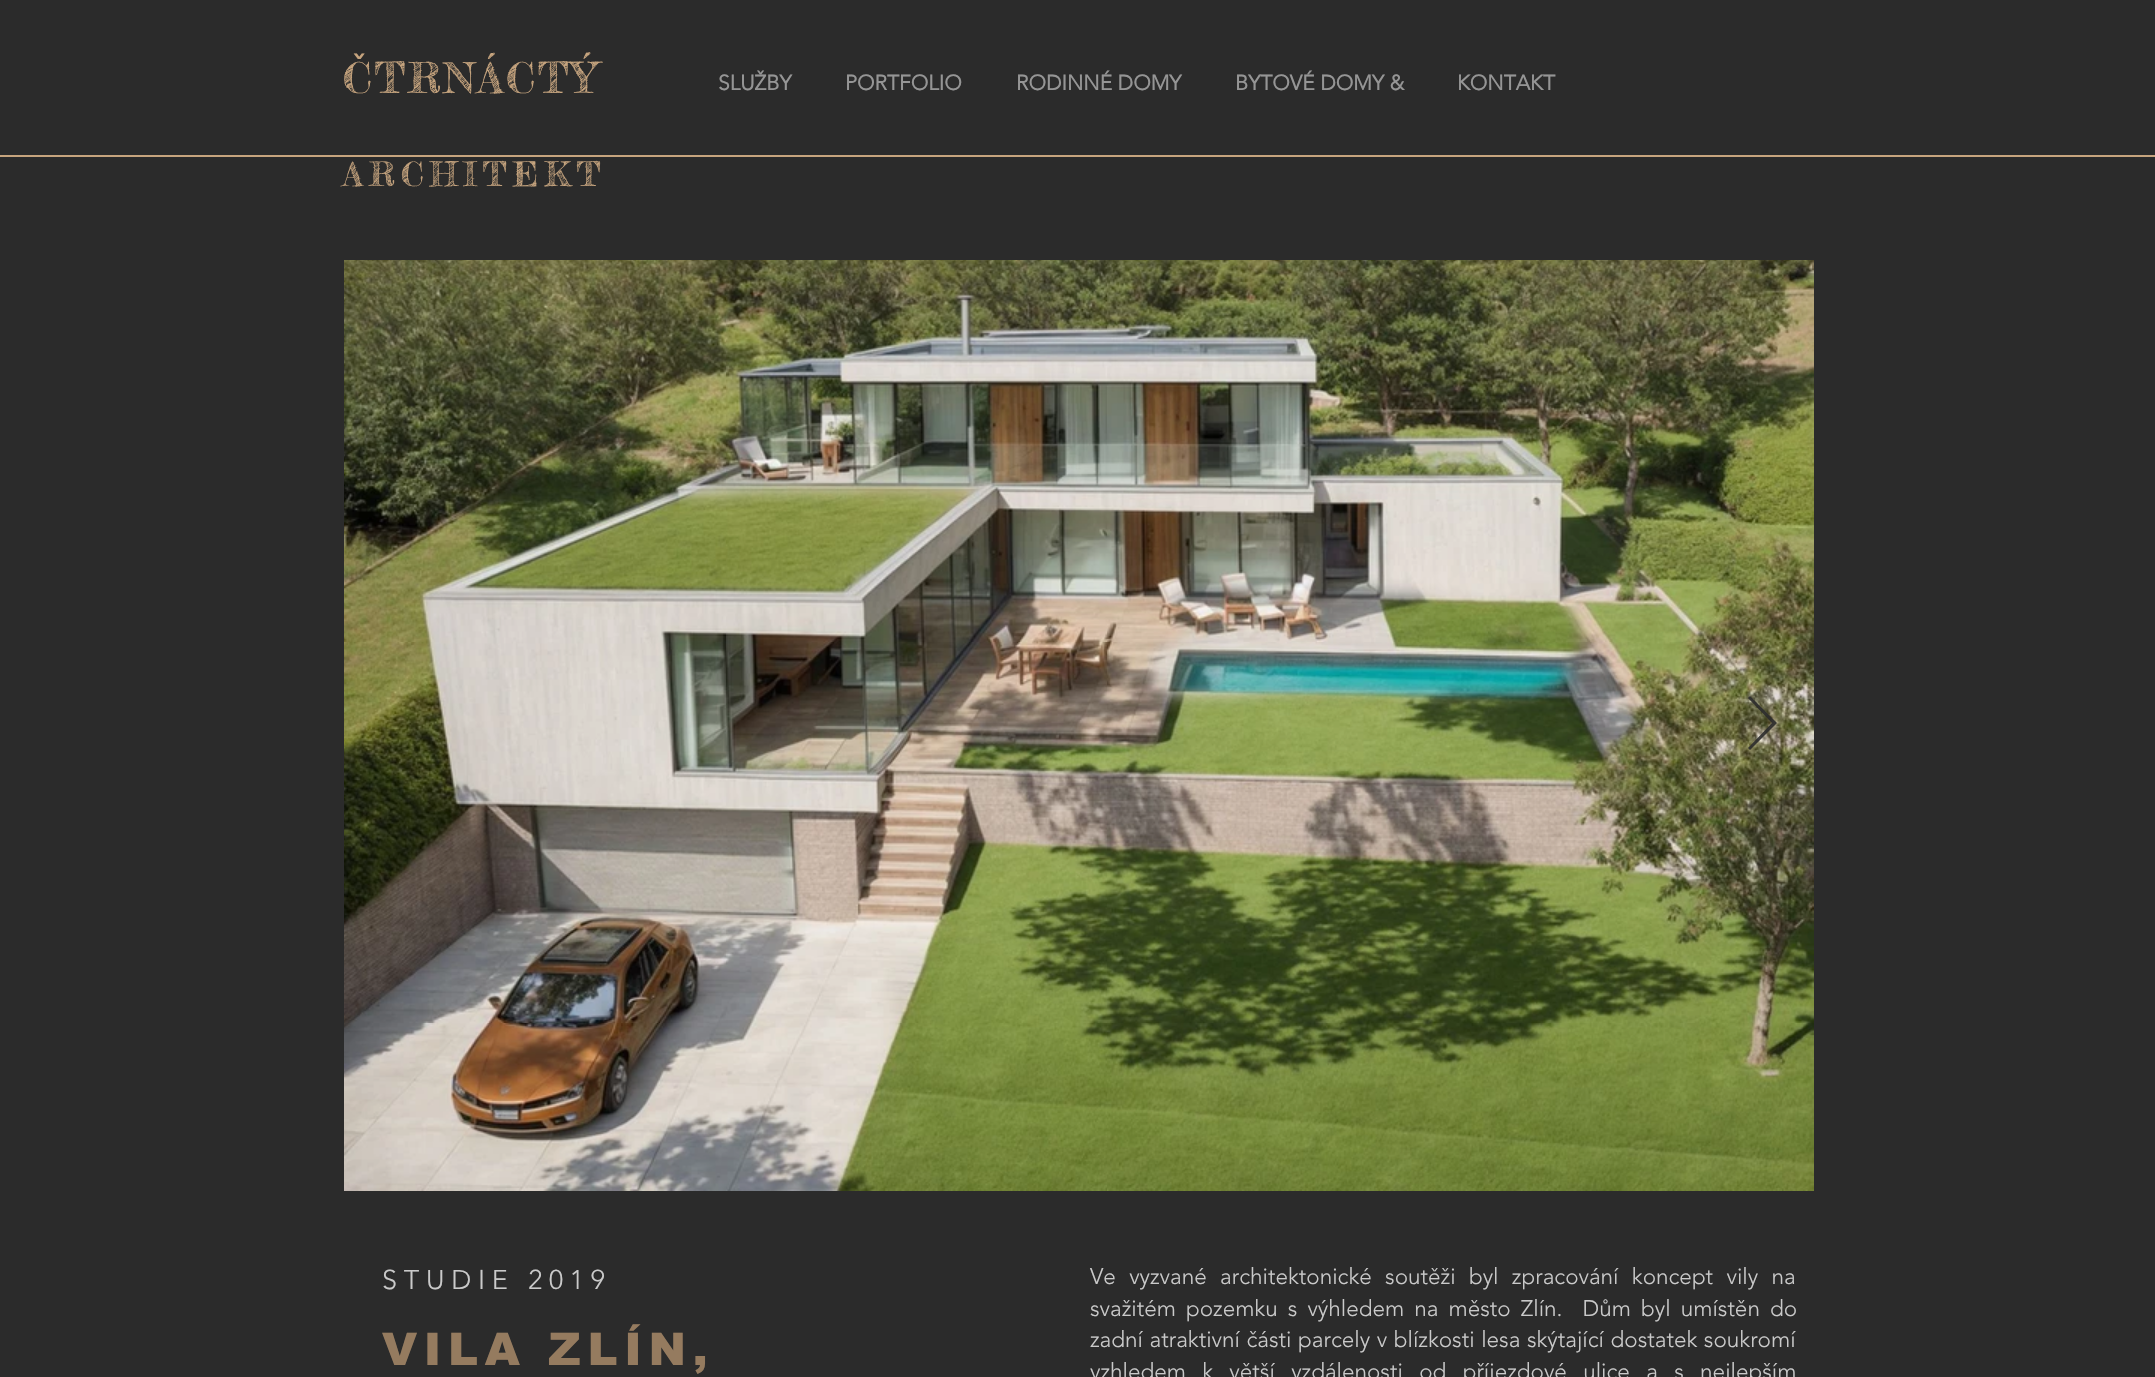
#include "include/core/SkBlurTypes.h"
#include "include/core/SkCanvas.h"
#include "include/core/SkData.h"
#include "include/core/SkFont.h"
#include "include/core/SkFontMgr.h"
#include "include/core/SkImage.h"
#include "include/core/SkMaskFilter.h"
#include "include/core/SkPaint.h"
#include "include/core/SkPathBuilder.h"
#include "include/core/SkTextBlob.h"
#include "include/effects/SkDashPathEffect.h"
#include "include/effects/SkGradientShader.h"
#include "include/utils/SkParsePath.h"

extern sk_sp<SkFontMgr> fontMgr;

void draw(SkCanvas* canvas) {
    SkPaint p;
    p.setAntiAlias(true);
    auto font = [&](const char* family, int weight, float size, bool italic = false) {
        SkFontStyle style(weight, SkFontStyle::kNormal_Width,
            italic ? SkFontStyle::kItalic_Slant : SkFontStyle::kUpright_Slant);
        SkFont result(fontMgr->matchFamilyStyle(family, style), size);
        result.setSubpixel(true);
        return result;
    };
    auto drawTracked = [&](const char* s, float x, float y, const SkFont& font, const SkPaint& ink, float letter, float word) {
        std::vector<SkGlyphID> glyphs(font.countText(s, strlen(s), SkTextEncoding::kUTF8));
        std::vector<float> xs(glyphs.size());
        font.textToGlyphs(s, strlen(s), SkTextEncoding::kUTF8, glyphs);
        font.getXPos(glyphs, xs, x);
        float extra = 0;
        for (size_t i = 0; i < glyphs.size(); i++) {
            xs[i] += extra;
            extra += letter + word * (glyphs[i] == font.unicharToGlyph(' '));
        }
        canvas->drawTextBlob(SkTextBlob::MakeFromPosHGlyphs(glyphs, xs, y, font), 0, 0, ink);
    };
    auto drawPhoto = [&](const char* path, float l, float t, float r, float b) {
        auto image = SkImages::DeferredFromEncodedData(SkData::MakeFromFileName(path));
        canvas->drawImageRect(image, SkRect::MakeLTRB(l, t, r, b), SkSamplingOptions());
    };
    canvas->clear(0xFF2B2B2B);
    auto font1 = font("Fredericka the Great", 400, 42);
    p.setColor(0xFFC6A47E);
    drawTracked("CTRNÁCTÝ", 343, 93, font1, p, 3.25f, 0);
    auto font2 = font("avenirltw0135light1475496", 700, 32);
    drawTracked("ˇ", 355, 77, font2, p, 2, 0);
    canvas->drawRect(SkRect::MakeLTRB(0, 155, 2155, 157), p);
    auto font3 = font("Fredericka the Great", 400, 33);
    drawTracked("ARCHITEKT", 343, 186, font3, p, 6.5f, 0);
    auto font4 = font("avenirltw0135light1475496", 700, 21);
    p.setColor(0xFF959595);
    {
        const struct { const char* s; float x, y; } items[] = {
            {"SLUŽBY", 718, 90},
            {"PORTFOLIO", 845, 90},
            {"RODINNÉ DOMY", 1016, 90},
            {"BYTOVÉ DOMY &", 1235, 90},
            {"KONTAKT", 1457, 90},
        };
        for (auto [s, x, y] : items) {
            canvas->drawString(s, x, y, font4, p);
        }
    }
    drawPhoto("media/1.png", 344, 260, 1814, 1191);
    p.setColor(0xE62B2B2B);
    canvas->drawPath(SkPathBuilder().moveTo(1748, 698).lineTo(1750, 696).lineTo(1777, 723).lineTo(1750, 750).lineTo(1748, 748).lineTo(1772, 723).close().detach(), p);
    auto font5 = font("avenirltw0135light1475496", 300, 27);
    p.setColor(0xFFCACACA);
    drawTracked("STUDIE 2019", 382, 1289, font5, p, 6.75f, 0);
    auto font6 = font("avenirltw0135light1475496", 300, 22.5f);
    drawTracked("Ve vyzvané architektonické soutěži byl zpracování koncept vily na", 1090, 1284, font6, p, 0, 7.5f);
    drawTracked("svažitém pozemku s výhledem na město Zlín.  Dům byl umístěn do", 1090, 1316, font6, p, 0, 4.25f);
    drawTracked("zadní atraktivní části parcely v blízkosti lesa skýtající dostatek soukromí", 1090, 1347, font6, p, 0, 0.75f);
    drawTracked("vzhledem k větší vzdálenosti od příjezdové ulice a s nejlepším", 1090, 1379, font6, p, 0, 10.5f);
    auto font7 = font("arial", 900, 45);
    p.setColor(0xFF957B5F);
    drawTracked("VILA ZLÍN,", 382, 1365, font7, p, 6.75f, 0);
}
